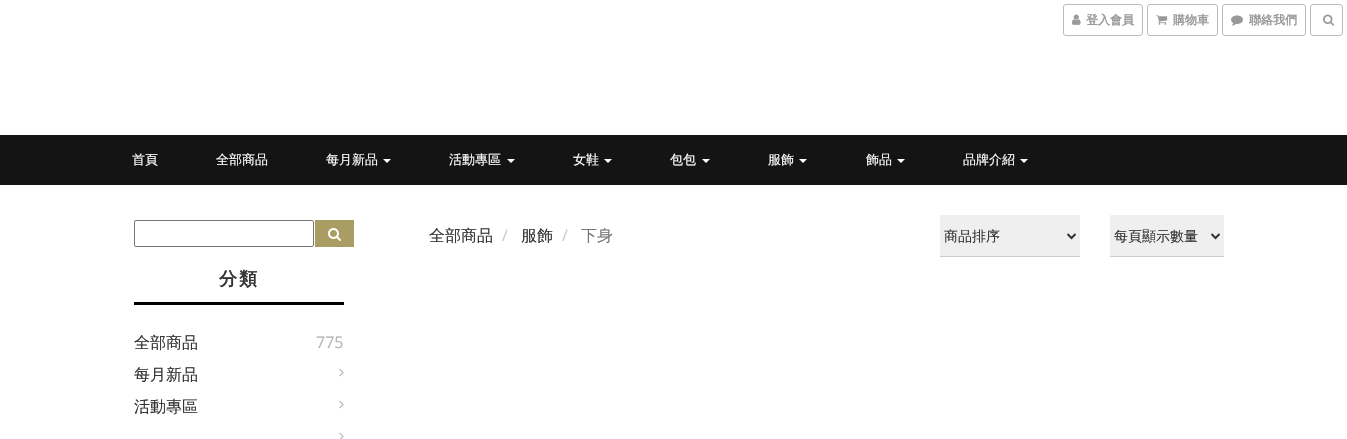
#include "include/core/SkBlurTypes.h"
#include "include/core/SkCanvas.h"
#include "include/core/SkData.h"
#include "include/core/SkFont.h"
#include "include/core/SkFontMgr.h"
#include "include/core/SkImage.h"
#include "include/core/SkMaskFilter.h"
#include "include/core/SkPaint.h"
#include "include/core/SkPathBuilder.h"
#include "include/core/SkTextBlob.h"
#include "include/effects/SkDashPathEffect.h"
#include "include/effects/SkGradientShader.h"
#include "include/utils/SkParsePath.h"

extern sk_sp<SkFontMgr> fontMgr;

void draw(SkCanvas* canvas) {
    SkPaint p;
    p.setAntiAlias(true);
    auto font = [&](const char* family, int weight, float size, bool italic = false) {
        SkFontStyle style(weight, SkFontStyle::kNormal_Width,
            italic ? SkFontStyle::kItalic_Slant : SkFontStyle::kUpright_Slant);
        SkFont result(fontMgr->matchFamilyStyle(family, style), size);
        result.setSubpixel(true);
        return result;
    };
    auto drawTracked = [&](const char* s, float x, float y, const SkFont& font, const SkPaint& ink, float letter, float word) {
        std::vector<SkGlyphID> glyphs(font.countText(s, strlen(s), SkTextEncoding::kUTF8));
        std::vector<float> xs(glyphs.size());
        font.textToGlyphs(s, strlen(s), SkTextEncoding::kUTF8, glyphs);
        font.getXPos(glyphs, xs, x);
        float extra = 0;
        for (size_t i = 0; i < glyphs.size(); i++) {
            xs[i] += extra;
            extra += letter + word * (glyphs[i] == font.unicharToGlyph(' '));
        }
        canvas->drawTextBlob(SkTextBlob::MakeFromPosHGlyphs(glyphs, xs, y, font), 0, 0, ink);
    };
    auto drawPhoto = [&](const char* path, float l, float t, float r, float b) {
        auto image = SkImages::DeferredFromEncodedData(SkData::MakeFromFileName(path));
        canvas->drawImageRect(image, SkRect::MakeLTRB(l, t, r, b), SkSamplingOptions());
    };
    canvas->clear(0xFFFFFFFF);
    p.setStyle(SkPaint::kStroke_Style);
    p.setStrokeWidth(1);
    p.setColor(0xFFBBBBBB);
    canvas->drawRoundRect(SkRect::MakeLTRB(1063.5f, 4.5f, 1142.5f, 35.5f), 2.5f, 2.5f, p);
    drawPhoto("media/1.png", 1072, 14, 1081, 25);
    auto font1 = font("WenQuanYi Zen Hei", 700, 12);
    p.setStyle(SkPaint::kFill_Style);
    p.setColor(0xFF999999);
    canvas->drawString("登入會員", 1086, 24, font1, p);
    p.setStyle(SkPaint::kStroke_Style);
    p.setColor(0xFFBBBBBB);
    canvas->drawRoundRect(SkRect::MakeLTRB(1147.5f, 4.5f, 1217.5f, 35.5f), 2.5f, 2.5f, p);
    drawPhoto("media/2.png", 1156, 15, 1168, 25);
    p.setStyle(SkPaint::kFill_Style);
    p.setColor(0xFF999999);
    canvas->drawString("購物車", 1173, 24, font1, p);
    p.setStyle(SkPaint::kStroke_Style);
    p.setColor(0xFFBBBBBB);
    canvas->drawRoundRect(SkRect::MakeLTRB(1222.5f, 4.5f, 1305.5f, 35.5f), 2.5f, 2.5f, p);
    drawPhoto("media/3.png", 1231, 15, 1243, 26);
    p.setStyle(SkPaint::kFill_Style);
    p.setColor(0xFF999999);
    canvas->drawString("聯絡我們", 1249, 24, font1, p);
    p.setStyle(SkPaint::kStroke_Style);
    p.setColor(0xFFBBBBBB);
    canvas->drawRoundRect(SkRect::MakeLTRB(1310.5f, 4.5f, 1342.5f, 35.5f), 2.5f, 2.5f, p);
    drawPhoto("media/4.png", 1323, 14, 1334, 26);
    p.setStyle(SkPaint::kFill_Style);
    p.setColor(0xFF141414);
    canvas->drawRect(SkRect::MakeLTRB(0, 135, 1347, 185), p);
    auto font2 = font("WenQuanYi Zen Hei", 500, 13);
    p.setColor(0xFFFFFFFF);
    {
        const struct { const char* s; float x, y; } items[] = {
            {"首頁", 132, 164},
            {"全部商品", 216, 164},
            {"每月新品", 326, 164},
        };
        for (auto [s, x, y] : items) {
            canvas->drawString(s, x, y, font2, p);
        }
    }
    canvas->drawPath(SkPathBuilder().moveTo(383, 159).lineTo(391, 159).lineTo(387, 163).close().detach(), p);
    canvas->drawString("活動專區", 449, 164, font2, p);
    canvas->drawPath(SkPathBuilder().moveTo(507, 159).lineTo(515, 159).lineTo(511, 163).close().detach(), p);
    canvas->drawString("女鞋", 573, 164, font2, p);
    canvas->drawPath(SkPathBuilder().moveTo(604, 159).lineTo(612, 159).lineTo(608, 163).close().detach(), p);
    canvas->drawString("包包", 670, 164, font2, p);
    canvas->drawPath(SkPathBuilder().moveTo(702, 159).lineTo(710, 159).lineTo(706, 163).close().detach(), p);
    canvas->drawString("服飾", 768, 164, font2, p);
    canvas->drawPath(SkPathBuilder().moveTo(799, 159).lineTo(807, 159).lineTo(803, 163).close().detach(), p);
    canvas->drawString("飾品", 866, 164, font2, p);
    canvas->drawPath(SkPathBuilder().moveTo(897, 159).lineTo(905, 159).lineTo(901, 163).close().detach(), p);
    canvas->drawString("品牌介紹", 963, 164, font2, p);
    canvas->drawPath(SkPathBuilder().moveTo(1020, 159).lineTo(1028, 159).lineTo(1024, 163).close().detach(), p);
    auto font3 = font("WenQuanYi Zen Hei", 500, 16);
    p.setColor(0xFF333333);
    canvas->drawString("全部商品", 429, 241, font3, p);
    auto font4 = font("Open Sans", 400, 16);
    p.setColor(0xFFCCCCCC);
    canvas->drawString("/", 502, 241, font4, p);
    p.setColor(0xFF333333);
    canvas->drawString("服飾", 521, 241, font3, p);
    p.setColor(0xFFCCCCCC);
    canvas->drawString("/", 562, 241, font4, p);
    p.setColor(0xFF777777);
    canvas->drawString("下身", 581, 241, font3, p);
    p.setColor(0xFFEFEFEF);
    canvas->drawRect(SkRect::MakeLTRB(940, 215, 1080, 256), p);
    p.setColor(0xFFCCCCCC);
    canvas->drawRect(SkRect::MakeLTRB(940, 256, 1080, 257), p);
    p.setStyle(SkPaint::kStroke_Style);
    p.setStrokeWidth(2);
    p.setColor(0xFF333333);
    canvas->drawPath(SkPathBuilder().moveTo(1067.5f, 234).lineTo(1071.5f, 238).lineTo(1075.5f, 234).detach(), p);
    auto font5 = font("WenQuanYi Zen Hei", 500, 14);
    p.setStyle(SkPaint::kFill_Style);
    canvas->drawString("商品排序", 944, 241, font5, p);
    p.setColor(0xFFEFEFEF);
    canvas->drawRect(SkRect::MakeLTRB(1110, 215, 1224, 256), p);
    p.setColor(0xFFCCCCCC);
    canvas->drawRect(SkRect::MakeLTRB(1110, 256, 1224, 257), p);
    p.setStyle(SkPaint::kStroke_Style);
    p.setColor(0xFF333333);
    canvas->drawPath(SkPathBuilder().moveTo(1211.5f, 234).lineTo(1215.5f, 238).lineTo(1219.5f, 234).detach(), p);
    p.setStyle(SkPaint::kFill_Style);
    canvas->drawString("每頁顯示數量", 1114, 241, font5, p);
    p.setStyle(SkPaint::kStroke_Style);
    p.setStrokeWidth(1);
    p.setColor(0xFF767676);
    canvas->drawRoundRect(SkRect::MakeLTRB(134.5f, 220.5f, 313.5f, 246.5f), 1.5f, 1.5f, p);
    p.setStyle(SkPaint::kFill_Style);
    p.setColor(0xFFA99D63);
    canvas->drawRect(SkRect::MakeLTRB(315, 220, 354, 247), p);
    drawPhoto("media/5.png", 328, 228, 341, 241);
    p.setColor(0xFF000000);
    canvas->drawRect(SkRect::MakeLTRB(134, 302, 344, 305), p);
    auto font6 = font("WenQuanYi Zen Hei", 700, 18);
    p.setColor(0xFF333333);
    drawTracked("分類", 219, 285, font6, p, 2, 0);
    canvas->drawString("全部商品", 134, 348, font3, p);
    p.setColor(0xFFB3B3B3);
    canvas->drawString("775", 316, 348, font4, p);
    p.setColor(0xFF333333);
    canvas->drawString("每月新品", 134, 380, font3, p);
    drawPhoto("media/6.png", 339, 368, 344, 377);
    canvas->drawString("活動專區", 134, 412, font3, p);
    drawPhoto("media/6.png", 339, 400, 344, 409);
    drawPhoto("media/7.png", 339, 432, 344, 439);
}
